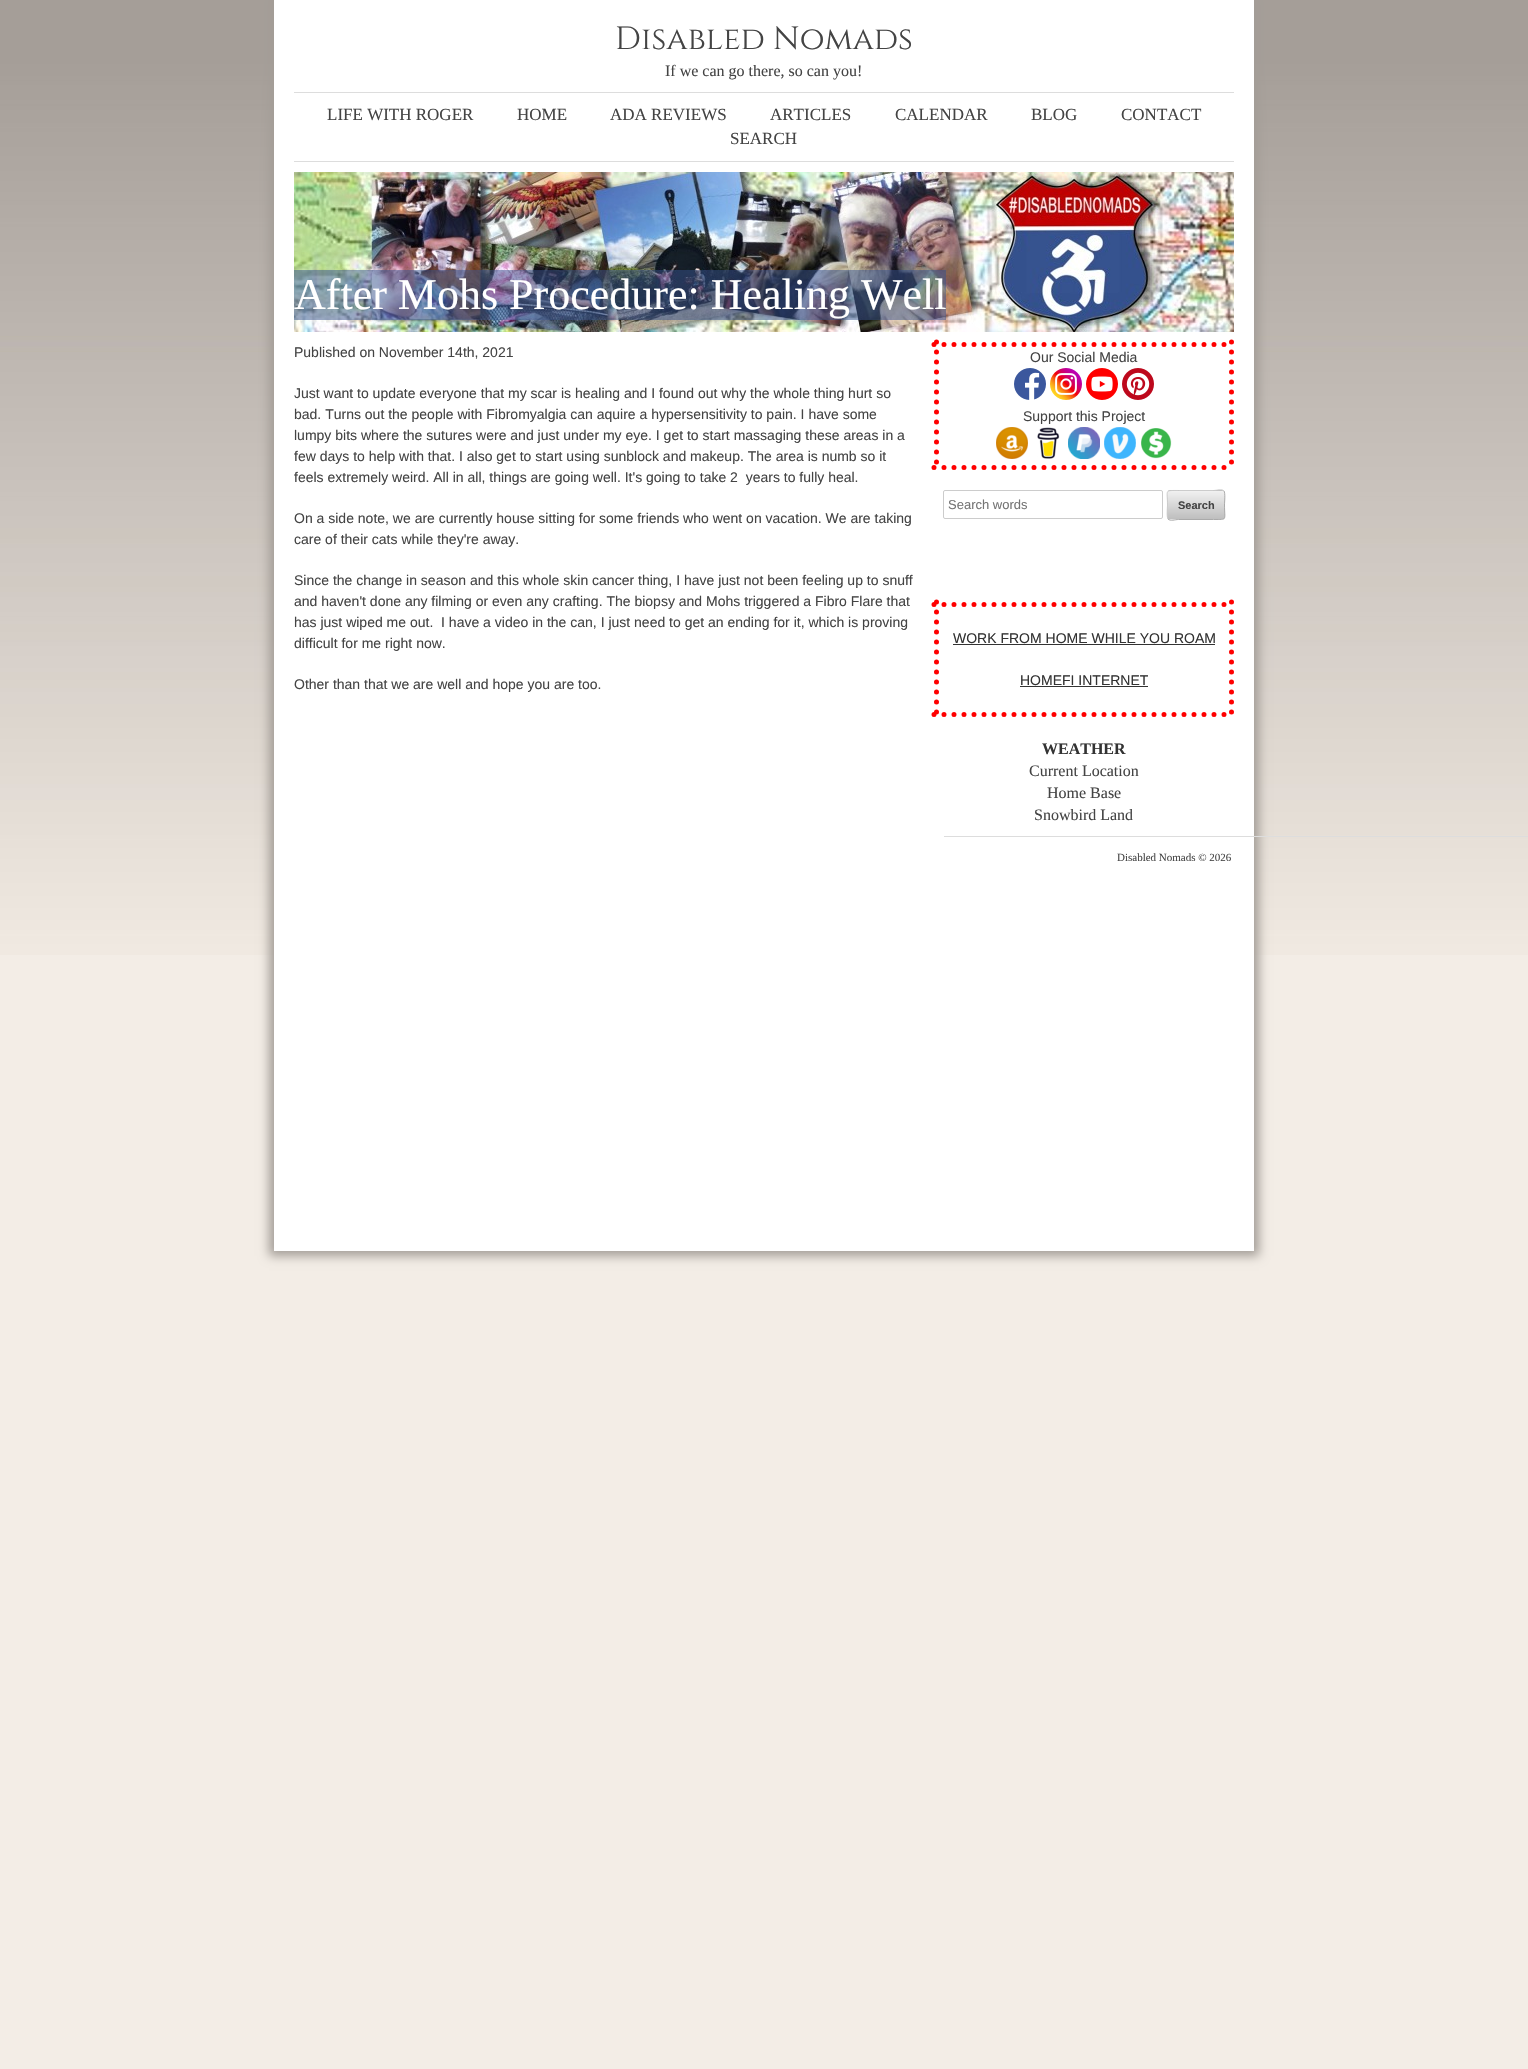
#include "include/core/SkBlurTypes.h"
#include "include/core/SkCanvas.h"
#include "include/core/SkData.h"
#include "include/core/SkFont.h"
#include "include/core/SkFontMgr.h"
#include "include/core/SkImage.h"
#include "include/core/SkMaskFilter.h"
#include "include/core/SkPaint.h"
#include "include/core/SkPathBuilder.h"
#include "include/core/SkTextBlob.h"
#include "include/effects/SkDashPathEffect.h"
#include "include/effects/SkGradientShader.h"
#include "include/utils/SkParsePath.h"

extern sk_sp<SkFontMgr> fontMgr;

void draw(SkCanvas* canvas) {
    SkPaint p;
    p.setAntiAlias(true);
    auto font = [&](const char* family, int weight, float size, bool italic = false) {
        SkFontStyle style(weight, SkFontStyle::kNormal_Width,
            italic ? SkFontStyle::kItalic_Slant : SkFontStyle::kUpright_Slant);
        SkFont result(fontMgr->matchFamilyStyle(family, style), size);
        result.setSubpixel(true);
        return result;
    };
    auto drawPhoto = [&](const char* path, float l, float t, float r, float b) {
        auto image = SkImages::DeferredFromEncodedData(SkData::MakeFromFileName(path));
        canvas->drawImageRect(image, SkRect::MakeLTRB(l, t, r, b), SkSamplingOptions());
    };
    canvas->clear(0xFFF3EDE6);
    drawPhoto("media/1.png", 0, 0, 1528, 955);
    p.setColor(0xFFA39D97);
    p.setMaskFilter(SkMaskFilter::MakeBlur(kNormal_SkBlurStyle, 5));
    canvas->drawRect(SkRect::MakeLTRB(269, -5, 1259, 1256), p);
    p.setMaskFilter(nullptr);
    p.setColor(0xFFFFFFFF);
    canvas->drawRect(SkRect::MakeLTRB(274, 0, 1254, 1251), p);
    auto font1 = font("Cinzel", 400, 32);
    p.setColor(0xFF444444);
    canvas->drawString("Disabled Nomads", 615, 49, font1, p);
    auto font2 = font("Liberation Serif", 400, 16);
    canvas->drawString("If we can go there, so can you!", 665, 76, font2, p);
    p.setColor(0xFFDDDDDD);
    canvas->drawRect(SkRect::MakeLTRB(294, 92, 1234, 93), p);
    auto font3 = font("Liberation Serif", 400, 17);
    p.setColor(0xFF444444);
    {
        const struct { const char* s; float x, y; } items[] = {
            {"LIFE WITH ROGER", 327, 120},
            {"HOME", 517, 120},
            {"ADA REVIEWS", 610, 120},
            {"ARTICLES", 770, 120},
            {"CALENDAR", 895, 120},
            {"BLOG", 1031, 120},
            {"CONTACT", 1121, 120},
            {"SEARCH", 730, 144},
        };
        for (auto [s, x, y] : items) {
            canvas->drawString(s, x, y, font3, p);
        }
    }
    p.setColor(0xFFDDDDDD);
    canvas->drawRect(SkRect::MakeLTRB(294, 161, 1234, 162), p);
    drawPhoto("media/2.png", 294, 172, 1234, 332);
    p.setColor(0x8035518E);
    canvas->drawRect(SkRect::MakeLTRB(294, 270, 946, 320), p);
    auto font4 = font("Liberation Serif", 400, 44);
    p.setColor(0xFFFFFFFF);
    canvas->drawString("After Mohs Procedure: Healing Well", 294, 309, font4, p);
    auto font5 = font("Liberation Sans", 400, 14);
    p.setColor(0xFF444444);
    {
        const struct { const char* s; float x, y; } items[] = {
            {"Published on November 14th, 2021", 294, 357},
            {"Just want to update everyone that my scar is healing and I found out why the whole thing hurt so", 294, 398},
            {"bad. Turns out the people with Fibromyalgia can aquire a hypersensitivity to pain. I have some", 294, 419},
            {"lumpy bits where the sutures were and just under my eye. I get to start massaging these areas in a", 294, 440},
            {"few days to help with that. I also get to start using sunblock and makeup. The area is numb so it", 294, 461},
            {"feels extremely weird. All in all, things are going well. It's going to take 2  years to fully heal.", 294, 482},
            {"On a side note, we are currently house sitting for some friends who went on vacation. We are taking", 294, 523},
            {"care of their cats while they're away.", 294, 544},
            {"Since the change in season and this whole skin cancer thing, I have just not been feeling up to snuff", 294, 585},
            {"and haven't done any filming or even any crafting. The biopsy and Mohs triggered a Fibro Flare that", 294, 606},
            {"has just wiped me out.  I have a video in the can, I just need to get an ending for it, which is proving", 294, 627},
            {"difficult for me right now.", 294, 648},
            {"Other than that we are well and hope you are too.", 294, 689},
        };
        for (auto [s, x, y] : items) {
            canvas->drawString(s, x, y, font5, p);
        }
    }
    p.setStyle(SkPaint::kStroke_Style);
    p.setStrokeWidth(5);
    p.setStrokeCap(SkPaint::kRound_Cap);
    p.setColor(0xFFFF0000);
    p.setPathEffect(SkDashPathEffect::Make({{0, 10}}, 0));
    canvas->drawPath(SkPathBuilder().moveTo(934, 344.5f).lineTo(1234, 344.5f).detach(), p);
    p.setPathEffect(nullptr);
    p.setPathEffect(SkDashPathEffect::Make({{0, 10}}, 0));
    canvas->drawPath(SkPathBuilder().moveTo(1231.5f, 342).lineTo(1231.5f, 470).detach(), p);
    p.setPathEffect(nullptr);
    p.setPathEffect(SkDashPathEffect::Make({{0, 10}}, 0));
    canvas->drawPath(SkPathBuilder().moveTo(934, 467.5f).lineTo(1234, 467.5f).detach(), p);
    p.setPathEffect(nullptr);
    p.setPathEffect(SkDashPathEffect::Make({{0, 10}}, 0));
    canvas->drawPath(SkPathBuilder().moveTo(936.5f, 342).lineTo(936.5f, 470).detach(), p);
    p.setPathEffect(nullptr);
    p.setStyle(SkPaint::kFill_Style);
    p.setColor(0xFF444444);
    canvas->drawString("Our Social Media", 1030, 362, font5, p);
    drawPhoto("media/3.png", 1014, 368, 1046, 400);
    drawPhoto("media/4.png", 1050, 368, 1082, 400);
    drawPhoto("media/5.png", 1086, 368, 1118, 400);
    drawPhoto("media/6.png", 1122, 368, 1154, 400);
    canvas->drawString("Support this Project", 1023, 421, font5, p);
    drawPhoto("media/7.png", 996, 427, 1028, 459);
    drawPhoto("media/8.png", 1037, 427, 1060, 459);
    drawPhoto("media/9.png", 1068, 427, 1100, 459);
    drawPhoto("media/10.png", 1104, 427, 1136, 459);
    drawPhoto("media/11.png", 1141, 428, 1172, 459);
    p.setStyle(SkPaint::kStroke_Style);
    p.setStrokeWidth(1);
    p.setStrokeCap(SkPaint::kButt_Cap);
    p.setColor(0xFFCCCCCC);
    canvas->drawRoundRect(SkRect::MakeLTRB(943.5f, 490.5f, 1162.5f, 518.5f), 1.5f, 1.5f, p);
    auto font6 = font("Liberation Sans", 400, 13);
    p.setStyle(SkPaint::kFill_Style);
    p.setColor(0xFF757575);
    canvas->drawString("Search words", 948, 509, font6, p);
    p.setColor(0xFFEEEEEE);
    canvas->drawRoundRect(SkRect::MakeLTRB(1167, 490, 1225, 520), 3, 3, p);
    canvas->save();
    canvas->clipPath(SkPathBuilder().moveTo(1170, 490).lineTo(1222, 490).cubicTo(1223.5f, 490, 1225, 491.5f, 1225, 493).lineTo(1225, 517).cubicTo(1225, 518.5f, 1223.5f, 520, 1222, 520).lineTo(1170, 520).cubicTo(1168.5f, 520, 1167, 518.5f, 1167, 517).lineTo(1167, 493).cubicTo(1167, 491.5f, 1168.5f, 490, 1170, 490).close().detach(), true);
    {
        const SkColor colors[] = {0x33FFFFFF, 0x33000000};
        const float stops[] = {0, 1};
        const SkPoint ends[] = {{1196, 463}, {1196, 491}};
        p.setShader(SkGradientShader::MakeLinear(ends, colors, stops, 2, SkTileMode::kClamp));
        p.setAlpha(255);
    }
    canvas->drawRect(SkRect::MakeLTRB(1167, 490, 1225, 491), p);
    {
        const SkColor colors[] = {0x33FFFFFF, 0x33000000};
        const float stops[] = {0, 1};
        const SkPoint ends[] = {{1196, 491}, {1196, 519}};
        p.setShader(SkGradientShader::MakeLinear(ends, colors, stops, 2, SkTileMode::kClamp));
        p.setAlpha(255);
    }
    canvas->drawRect(SkRect::MakeLTRB(1167, 491, 1225, 519), p);
    canvas->restore();
    p.setStyle(SkPaint::kStroke_Style);
    p.setShader(nullptr);
    p.setColor(0xFFAAAAAA);
    canvas->drawPath(SkPathBuilder().moveTo(1224, 491).cubicTo(1225.5f, 493, 1224.5f, 502.5f, 1224.5f, 505).cubicTo(1224.5f, 520.5f, 1228, 519.5f, 1213.5f, 519.5f).lineTo(1178.5f, 519.5f).cubicTo(1175, 519.5f, 1170.5f, 521.5f, 1168, 519).detach(), p);
    p.setColor(0xFFCCCCCC);
    canvas->drawPath(SkPathBuilder().moveTo(1168, 519).cubicTo(1166.5f, 517, 1167.5f, 507.5f, 1167.5f, 505).cubicTo(1167.5f, 489.5f, 1164, 490.5f, 1178.5f, 490.5f).lineTo(1213.5f, 490.5f).cubicTo(1217, 490.5f, 1221.5f, 488.5f, 1224, 491).detach(), p);
    auto font7 = font("Liberation Sans", 700, 11);
    p.setStyle(SkPaint::kFill_Style);
    p.setColor(0xFF444444);
    canvas->drawString("Search", 1178, 509, font7, p);
    p.setStyle(SkPaint::kStroke_Style);
    p.setStrokeWidth(5);
    p.setStrokeCap(SkPaint::kRound_Cap);
    p.setColor(0xFFFF0000);
    p.setPathEffect(SkDashPathEffect::Make({{0, 10}}, 0));
    canvas->drawPath(SkPathBuilder().moveTo(934, 604.5f).lineTo(1234, 604.5f).detach(), p);
    p.setPathEffect(nullptr);
    p.setPathEffect(SkDashPathEffect::Make({{0, 10}}, 0));
    canvas->drawPath(SkPathBuilder().moveTo(1231.5f, 602).lineTo(1231.5f, 717).detach(), p);
    p.setPathEffect(nullptr);
    p.setPathEffect(SkDashPathEffect::Make({{0, 10}}, 0));
    canvas->drawPath(SkPathBuilder().moveTo(934, 714.5f).lineTo(1234, 714.5f).detach(), p);
    p.setPathEffect(nullptr);
    p.setPathEffect(SkDashPathEffect::Make({{0, 10}}, 0));
    canvas->drawPath(SkPathBuilder().moveTo(936.5f, 602).lineTo(936.5f, 717).detach(), p);
    p.setPathEffect(nullptr);
    p.setStyle(SkPaint::kFill_Style);
    p.setColor(0xFF333333);
    canvas->drawString("WORK FROM HOME WHILE YOU ROAM", 953, 643, font5, p);
    canvas->drawRect(SkRect::MakeLTRB(953, 644, 1215, 645), p);
    canvas->drawString("HOMEFI INTERNET", 1020, 685, font5, p);
    canvas->drawRect(SkRect::MakeLTRB(1020, 686, 1148, 687), p);
    auto font8 = font("Liberation Serif", 700, 16);
    canvas->drawString("WEATHER", 1042, 754, font8, p);
    p.setColor(0xFF444444);
    {
        const struct { const char* s; float x, y; } items[] = {
            {"Current Location", 1029, 776},
            {"Home Base", 1047, 798},
            {"Snowbird Land", 1034, 820},
        };
        for (auto [s, x, y] : items) {
            canvas->drawString(s, x, y, font2, p);
        }
    }
    p.setColor(0xFFDDDDDD);
    canvas->drawRect(SkRect::MakeLTRB(944, 836, 1528, 837), p);
    auto font9 = font("Liberation Serif", 400, 11);
    p.setColor(0xFF444444);
    canvas->drawString("Disabled Nomads © 2026", 1117, 861, font9, p);
}
